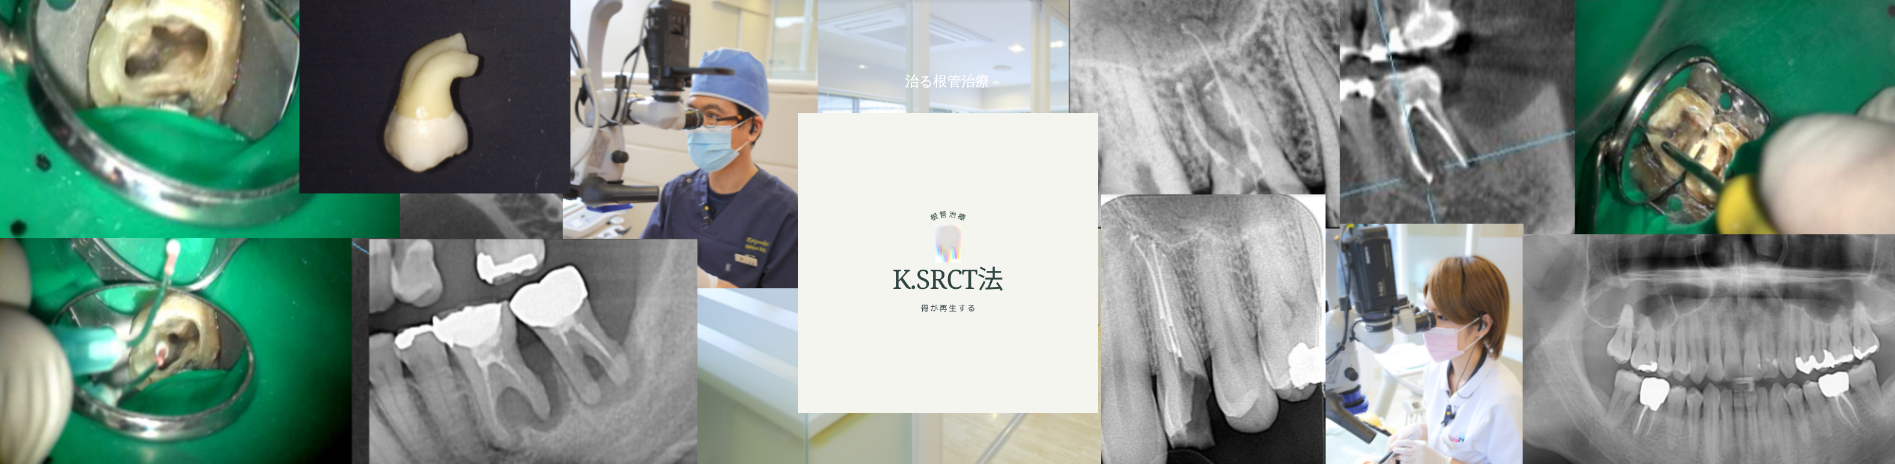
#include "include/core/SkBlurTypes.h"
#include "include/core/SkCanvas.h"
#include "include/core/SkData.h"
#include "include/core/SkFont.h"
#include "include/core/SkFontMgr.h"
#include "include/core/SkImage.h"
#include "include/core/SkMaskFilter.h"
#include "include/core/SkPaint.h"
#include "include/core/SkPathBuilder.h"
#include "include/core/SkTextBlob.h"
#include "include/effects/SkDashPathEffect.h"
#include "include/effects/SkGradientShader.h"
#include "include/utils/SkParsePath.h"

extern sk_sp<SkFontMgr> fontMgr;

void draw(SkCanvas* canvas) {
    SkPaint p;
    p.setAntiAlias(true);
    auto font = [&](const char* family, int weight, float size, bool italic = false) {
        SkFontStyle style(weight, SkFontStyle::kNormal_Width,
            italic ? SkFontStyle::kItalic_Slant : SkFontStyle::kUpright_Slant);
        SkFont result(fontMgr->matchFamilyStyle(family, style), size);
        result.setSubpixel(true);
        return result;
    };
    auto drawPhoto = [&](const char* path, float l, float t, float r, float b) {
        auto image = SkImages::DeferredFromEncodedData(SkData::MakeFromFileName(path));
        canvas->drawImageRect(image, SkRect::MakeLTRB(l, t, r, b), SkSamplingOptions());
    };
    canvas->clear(0xFFFFFFFF);
    drawPhoto("media/1.png", 0, 0, 1895, 464);
    auto font1 = font("WenQuanYi Zen Hei", 500, 14);
    p.setColor(0xFFFFFFFF);
    canvas->drawString("治る根管治療", 905, 86, font1, p);
    drawPhoto("media/2.png", 798, 113, 1098, 413);
}
